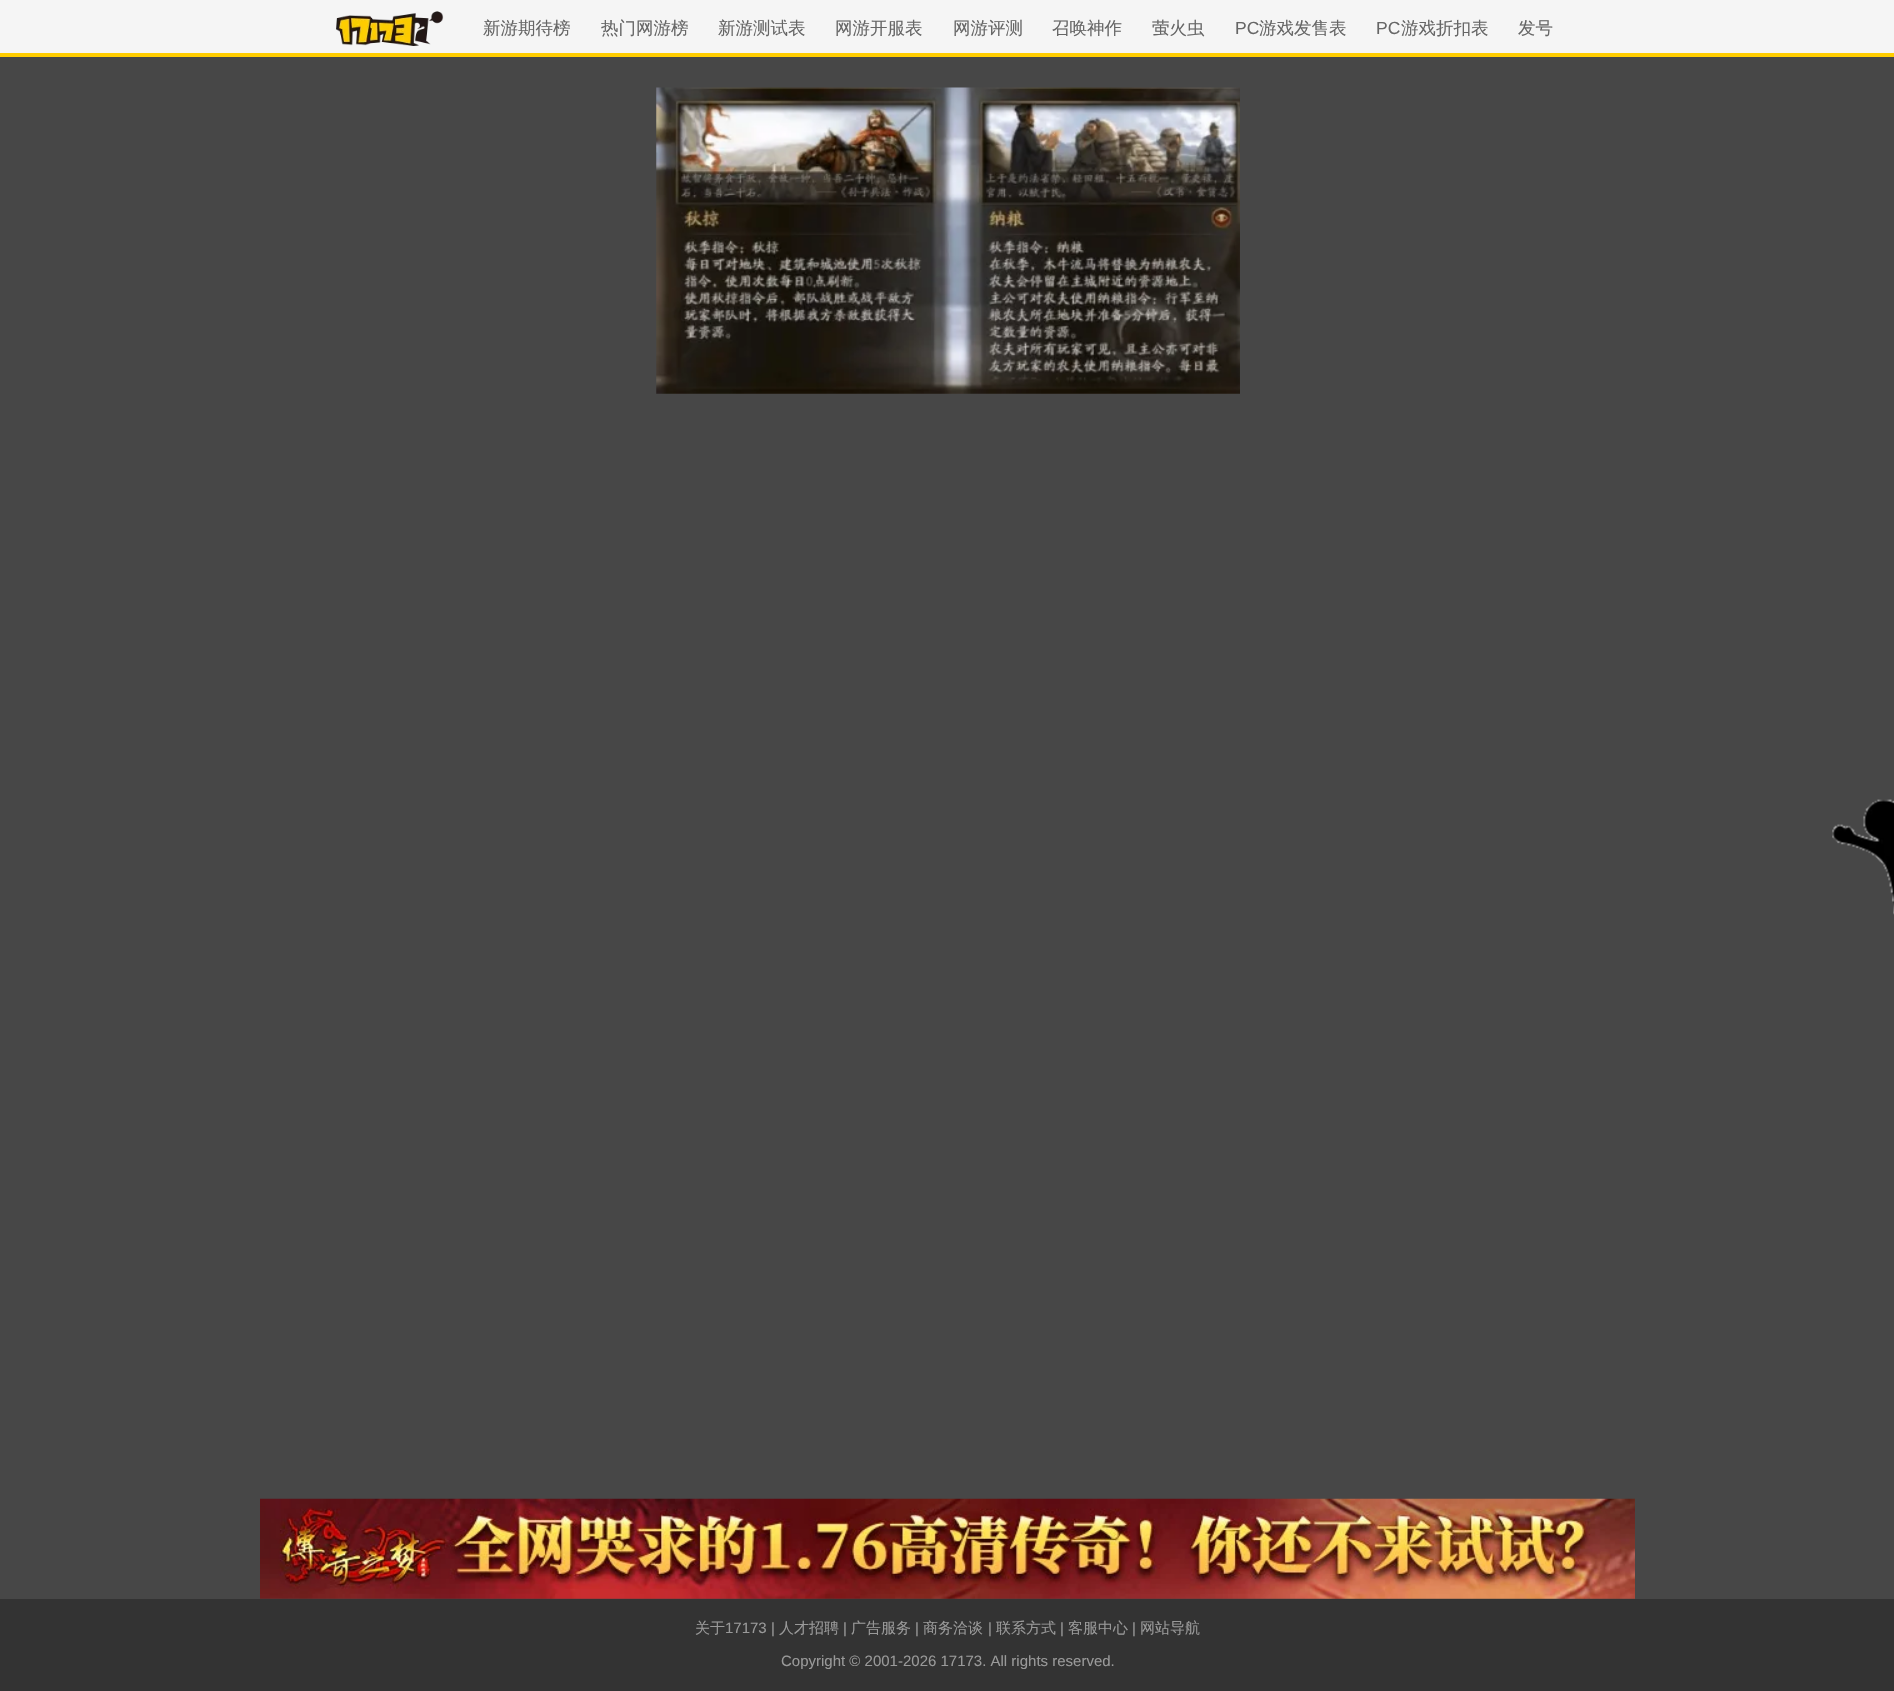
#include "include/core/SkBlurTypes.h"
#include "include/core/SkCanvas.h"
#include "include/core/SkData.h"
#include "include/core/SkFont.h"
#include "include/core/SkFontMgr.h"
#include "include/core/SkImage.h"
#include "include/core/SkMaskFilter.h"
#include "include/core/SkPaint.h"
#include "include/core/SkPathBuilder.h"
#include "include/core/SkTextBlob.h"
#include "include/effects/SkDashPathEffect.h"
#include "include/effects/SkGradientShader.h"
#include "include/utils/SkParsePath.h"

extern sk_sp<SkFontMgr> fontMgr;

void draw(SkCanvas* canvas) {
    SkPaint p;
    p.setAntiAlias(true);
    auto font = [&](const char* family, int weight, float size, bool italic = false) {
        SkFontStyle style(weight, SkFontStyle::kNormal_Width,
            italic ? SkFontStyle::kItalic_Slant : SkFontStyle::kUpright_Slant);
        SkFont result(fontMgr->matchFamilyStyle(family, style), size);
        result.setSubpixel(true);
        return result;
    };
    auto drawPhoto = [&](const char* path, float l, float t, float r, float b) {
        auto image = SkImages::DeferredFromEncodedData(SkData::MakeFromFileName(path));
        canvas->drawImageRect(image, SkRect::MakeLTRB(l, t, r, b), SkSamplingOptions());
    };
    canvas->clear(0xFF474747);
    p.setColor(0xFFF5F5F5);
    canvas->drawRect(SkRect::MakeLTRB(0, 0, 1894, 53), p);
    p.setColor(0xFFFFCD00);
    canvas->drawRect(SkRect::MakeLTRB(0, 53, 1894, 57), p);
    drawPhoto("media/1.png", 336, 11, 444, 46);
    auto font1 = font("WenQuanYi Zen Hei", 500, 17.5f);
    p.setColor(0xFF666666);
    {
        const struct { const char* s; float x, y; } items[] = {
            {"新游期待榜", 483, 34},
            {"热门网游榜", 601, 34},
            {"新游测试表", 718, 34},
            {"网游开服表", 835, 34},
            {"网游评测", 953, 34},
            {"召唤神作", 1052, 34},
            {"萤火虫", 1152, 34},
        };
        for (auto [s, x, y] : items) {
            canvas->drawString(s, x, y, font1, p);
        }
    }
    auto font2 = font("Liberation Sans", 400, 17.5f);
    canvas->drawString("PC", 1235, 34, font2, p);
    canvas->drawString("游戏发售表", 1259, 34, font1, p);
    canvas->drawString("PC", 1376, 34, font2, p);
    canvas->drawString("游戏折扣表", 1401, 34, font1, p);
    canvas->drawString("发号", 1518, 34, font1, p);
    drawPhoto("media/2.png", 656, 87, 1240, 394);
    drawPhoto("media/3.png", 260, 1498, 1635, 1599);
    drawPhoto("media/4.png", 1832, 799, 1894, 915);
    p.setColor(0xFF333333);
    canvas->drawRect(SkRect::MakeLTRB(0, 1599, 1894, 1691), p);
    auto font3 = font("WenQuanYi Zen Hei", 500, 15);
    p.setColor(0xFF999999);
    canvas->drawString("关于", 695, 1633, font3, p);
    auto font4 = font("Liberation Sans", 400, 15);
    canvas->drawString("17173 |", 725, 1633, font4, p);
    canvas->drawString("人才招聘", 779, 1633, font3, p);
    canvas->drawString("|", 843, 1633, font4, p);
    canvas->drawString("广告服务", 851, 1633, font3, p);
    canvas->drawString("|", 915, 1633, font4, p);
    canvas->drawString("商务洽谈", 923, 1633, font3, p);
    canvas->drawString("|", 988, 1633, font4, p);
    canvas->drawString("联系方式", 996, 1633, font3, p);
    canvas->drawString("|", 1060, 1633, font4, p);
    canvas->drawString("客服中心", 1068, 1633, font3, p);
    canvas->drawString("|", 1132, 1633, font4, p);
    canvas->drawString("网站导航", 1140, 1633, font3, p);
    canvas->drawString("Copyright © 2001-2026 17173. All rights reserved.", 781, 1666, font4, p);
}
